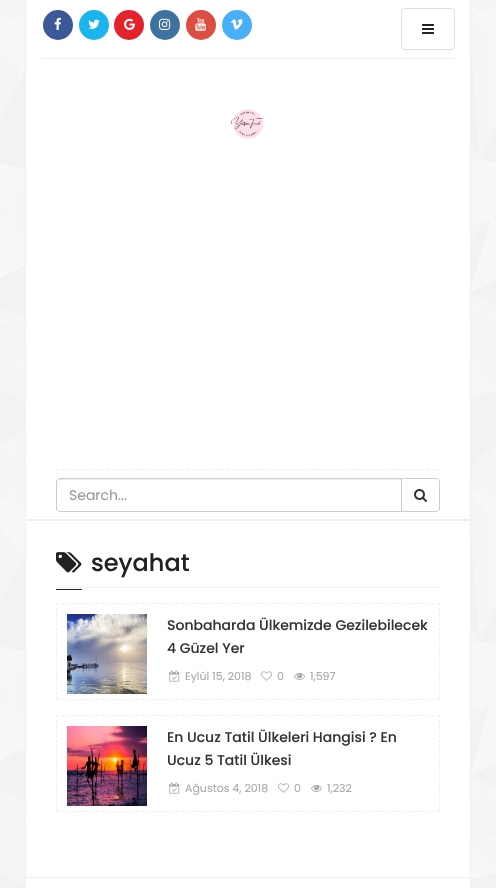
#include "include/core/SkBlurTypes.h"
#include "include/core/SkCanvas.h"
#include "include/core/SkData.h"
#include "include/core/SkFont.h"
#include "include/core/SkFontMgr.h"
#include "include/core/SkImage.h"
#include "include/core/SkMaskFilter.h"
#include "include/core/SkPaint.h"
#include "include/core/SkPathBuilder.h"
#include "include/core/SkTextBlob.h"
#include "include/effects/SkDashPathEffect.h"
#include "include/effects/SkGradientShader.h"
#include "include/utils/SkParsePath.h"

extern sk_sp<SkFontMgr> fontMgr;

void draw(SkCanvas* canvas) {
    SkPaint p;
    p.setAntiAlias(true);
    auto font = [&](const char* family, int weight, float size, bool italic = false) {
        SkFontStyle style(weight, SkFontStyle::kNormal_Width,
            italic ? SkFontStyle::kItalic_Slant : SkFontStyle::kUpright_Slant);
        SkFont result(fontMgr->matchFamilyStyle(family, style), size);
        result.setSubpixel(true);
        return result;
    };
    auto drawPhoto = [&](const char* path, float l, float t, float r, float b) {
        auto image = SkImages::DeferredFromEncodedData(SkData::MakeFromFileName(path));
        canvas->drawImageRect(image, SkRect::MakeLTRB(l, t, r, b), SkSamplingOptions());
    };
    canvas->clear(0xFFFFFFFF);
    drawPhoto("media/1.png", 0, 0, 496, 888);
    {
        const struct { float l, t, r, b; SkColor color; } items[] = {
            {470, 0, 471, 888, 0xFFEEEEEE},
            {25, 0, 26, 888, 0xFFEEEEEE},
            {26, 0, 470, 519, 0xFFFFFFFF},
            {41, 58, 455, 59, 0xFFEEEEEE},
        };
        for (auto [l, t, r, b, color] : items) {
            p.setColor(color);
            canvas->drawRect(SkRect::MakeLTRB(l, t, r, b), p);
        }
    }
    p.setColor(0xFF3B5898);
    canvas->drawCircle(58, 25, 15, p);
    drawPhoto("media/2.png", 54, 17, 61, 30);
    p.setColor(0xFF1AB4EF);
    canvas->drawCircle(94, 25, 15, p);
    drawPhoto("media/3.png", 88, 19, 100, 29);
    p.setColor(0xFFE32229);
    canvas->drawCircle(129, 25, 15, p);
    drawPhoto("media/4.png", 124, 18, 135, 30);
    p.setColor(0xFF3F729F);
    canvas->drawCircle(165, 25, 15, p);
    drawPhoto("media/5.png", 159, 18, 171, 30);
    p.setColor(0xFFDC4E41);
    canvas->drawCircle(201, 25, 15, p);
    drawPhoto("media/6.png", 195, 17, 206, 31);
    p.setColor(0xFF49AFF8);
    canvas->drawCircle(237, 25, 15, p);
    drawPhoto("media/7.png", 230, 19, 243, 30);
    p.setStyle(SkPaint::kStroke_Style);
    p.setStrokeWidth(1);
    p.setColor(0xFFDDDDDD);
    canvas->drawRoundRect(SkRect::MakeLTRB(401.5f, 8.5f, 454.5f, 49.5f), 3.5f, 3.5f, p);
    drawPhoto("media/8.png", 422, 24, 434, 34);
    drawPhoto("media/9.png", 230, 109, 265, 139);
    p.setColor(0xFFEEEEEE);
    p.setPathEffect(SkDashPathEffect::Make({{3, 2.01f}}, 0));
    canvas->drawPath(SkPathBuilder().moveTo(56, 469.5f).lineTo(440, 469.5f).detach(), p);
    p.setPathEffect(nullptr);
    p.setColor(0xFFCCCCCC);
    canvas->drawPath(SkPathBuilder().moveTo(401.5f, 478.5f).lineTo(436, 478.5f).cubicTo(438, 478.5f, 439.5f, 480, 439.5f, 482).lineTo(439.5f, 508).cubicTo(439.5f, 510, 438, 511.5f, 436, 511.5f).lineTo(401.5f, 511.5f).close().detach(), p);
    p.setStyle(SkPaint::kFill_Style);
    p.setColor(0xFFFFFFFF);
    canvas->drawPath(SkPathBuilder().moveTo(60, 478).lineTo(402, 478).lineTo(402, 512).lineTo(60, 512).cubicTo(58, 512, 56, 510, 56, 508).lineTo(56, 482).cubicTo(56, 480, 58, 478, 60, 478).close().detach(), p);
    p.setColor(0xFFECECEC);
    canvas->drawPath(SkPathBuilder().moveTo(60, 480).lineTo(401, 480).lineTo(401, 479).lineTo(60, 479).cubicTo(58, 479, 57, 480, 57, 482).lineTo(57, 483).cubicTo(57, 481, 58, 480, 60, 480).close().detach(), p);
    p.setStyle(SkPaint::kStroke_Style);
    p.setColor(0xFFCCCCCC);
    canvas->drawPath(SkPathBuilder().moveTo(60, 478.5f).lineTo(401.5f, 478.5f).lineTo(401.5f, 511.5f).lineTo(60, 511.5f).cubicTo(58, 511.5f, 56.5f, 510, 56.5f, 508).lineTo(56.5f, 482).cubicTo(56.5f, 480, 58, 478.5f, 60, 478.5f).close().detach(), p);
    auto font1 = font("Poppins", 400, 14);
    p.setStyle(SkPaint::kFill_Style);
    p.setColor(0xFF999999);
    canvas->drawString("Search...", 69, 500, font1, p);
    drawPhoto("media/10.png", 414, 489, 427, 502);
    {
        const struct { float l, t, r, b; SkColor color; } items[] = {
            {26, 519, 470, 521, 0xFFEEEEEE},
            {26, 521, 470, 877, 0xFFFFFFFF},
            {26, 877, 470, 878, 0xFFEEEEEE},
            {56, 587, 440, 588, 0xFFEEEEEE},
            {56, 589, 82, 590, 0xFF222222},
        };
        for (auto [l, t, r, b, color] : items) {
            p.setColor(color);
            canvas->drawRect(SkRect::MakeLTRB(l, t, r, b), p);
        }
    }
    drawPhoto("media/11.png", 56, 552, 82, 573);
    auto font2 = font("Poppins", 500, 24);
    canvas->drawString("seyahat", 91, 571, font2, p);
    p.setStyle(SkPaint::kStroke_Style);
    p.setColor(0xFFEEEEEE);
    p.setPathEffect(SkDashPathEffect::Make({{3, 2.01f}}, 0));
    canvas->drawPath(SkPathBuilder().moveTo(56, 603.5f).lineTo(440, 603.5f).detach(), p);
    p.setPathEffect(nullptr);
    p.setPathEffect(SkDashPathEffect::Make({{3, 1.95f}}, 0));
    canvas->drawPath(SkPathBuilder().moveTo(439.5f, 603).lineTo(439.5f, 700).detach(), p);
    p.setPathEffect(nullptr);
    p.setPathEffect(SkDashPathEffect::Make({{3, 2.01f}}, 0));
    canvas->drawPath(SkPathBuilder().moveTo(56, 699.5f).lineTo(440, 699.5f).detach(), p);
    p.setPathEffect(nullptr);
    p.setPathEffect(SkDashPathEffect::Make({{3, 1.95f}}, 0));
    canvas->drawPath(SkPathBuilder().moveTo(56.5f, 603).lineTo(56.5f, 700).detach(), p);
    p.setPathEffect(nullptr);
    drawPhoto("media/12.png", 67, 614, 147, 694);
    auto font3 = font("Poppins", 500, 14);
    p.setStyle(SkPaint::kFill_Style);
    p.setColor(0xFF333333);
    canvas->drawString("Sonbaharda Ülkemizde Gezilebilecek", 167, 630, font3, p);
    canvas->drawString("4 Güzel Yer", 167, 653, font3, p);
    drawPhoto("media/13.png", 169, 670, 180, 682);
    auto font4 = font("Poppins", 400, 11);
    p.setColor(0xFFAAAAAA);
    canvas->drawString("Eylül 15, 2018", 185, 680, font4, p);
    drawPhoto("media/14.png", 261, 671, 272, 681);
    canvas->drawString("0", 277, 680, font4, p);
    drawPhoto("media/15.png", 294, 673, 305, 680);
    canvas->drawString("1,597", 310, 680, font4, p);
    p.setStyle(SkPaint::kStroke_Style);
    p.setColor(0xFFEEEEEE);
    p.setPathEffect(SkDashPathEffect::Make({{3, 2.01f}}, 0));
    canvas->drawPath(SkPathBuilder().moveTo(56, 715.5f).lineTo(440, 715.5f).detach(), p);
    p.setPathEffect(nullptr);
    p.setPathEffect(SkDashPathEffect::Make({{3, 1.95f}}, 0));
    canvas->drawPath(SkPathBuilder().moveTo(439.5f, 715).lineTo(439.5f, 812).detach(), p);
    p.setPathEffect(nullptr);
    p.setPathEffect(SkDashPathEffect::Make({{3, 2.01f}}, 0));
    canvas->drawPath(SkPathBuilder().moveTo(56, 811.5f).lineTo(440, 811.5f).detach(), p);
    p.setPathEffect(nullptr);
    p.setPathEffect(SkDashPathEffect::Make({{3, 1.95f}}, 0));
    canvas->drawPath(SkPathBuilder().moveTo(56.5f, 715).lineTo(56.5f, 812).detach(), p);
    p.setPathEffect(nullptr);
    drawPhoto("media/16.png", 67, 726, 147, 806);
    p.setStyle(SkPaint::kFill_Style);
    p.setColor(0xFF333333);
    canvas->drawString("En Ucuz Tatil Ülkeleri Hangisi ? En", 167, 742, font3, p);
    canvas->drawString("Ucuz 5 Tatil Ülkesi", 167, 765, font3, p);
    drawPhoto("media/13.png", 169, 782, 180, 794);
    p.setColor(0xFFAAAAAA);
    canvas->drawString("Ağustos 4, 2018", 185, 792, font4, p);
    drawPhoto("media/14.png", 278, 783, 289, 793);
    canvas->drawString("0", 294, 792, font4, p);
    drawPhoto("media/15.png", 311, 785, 322, 792);
    canvas->drawString("1,232", 327, 792, font4, p);
    p.setColor(0xFFFFFFFF);
    canvas->drawRect(SkRect::MakeLTRB(26, 878, 470, 888), p);
}
